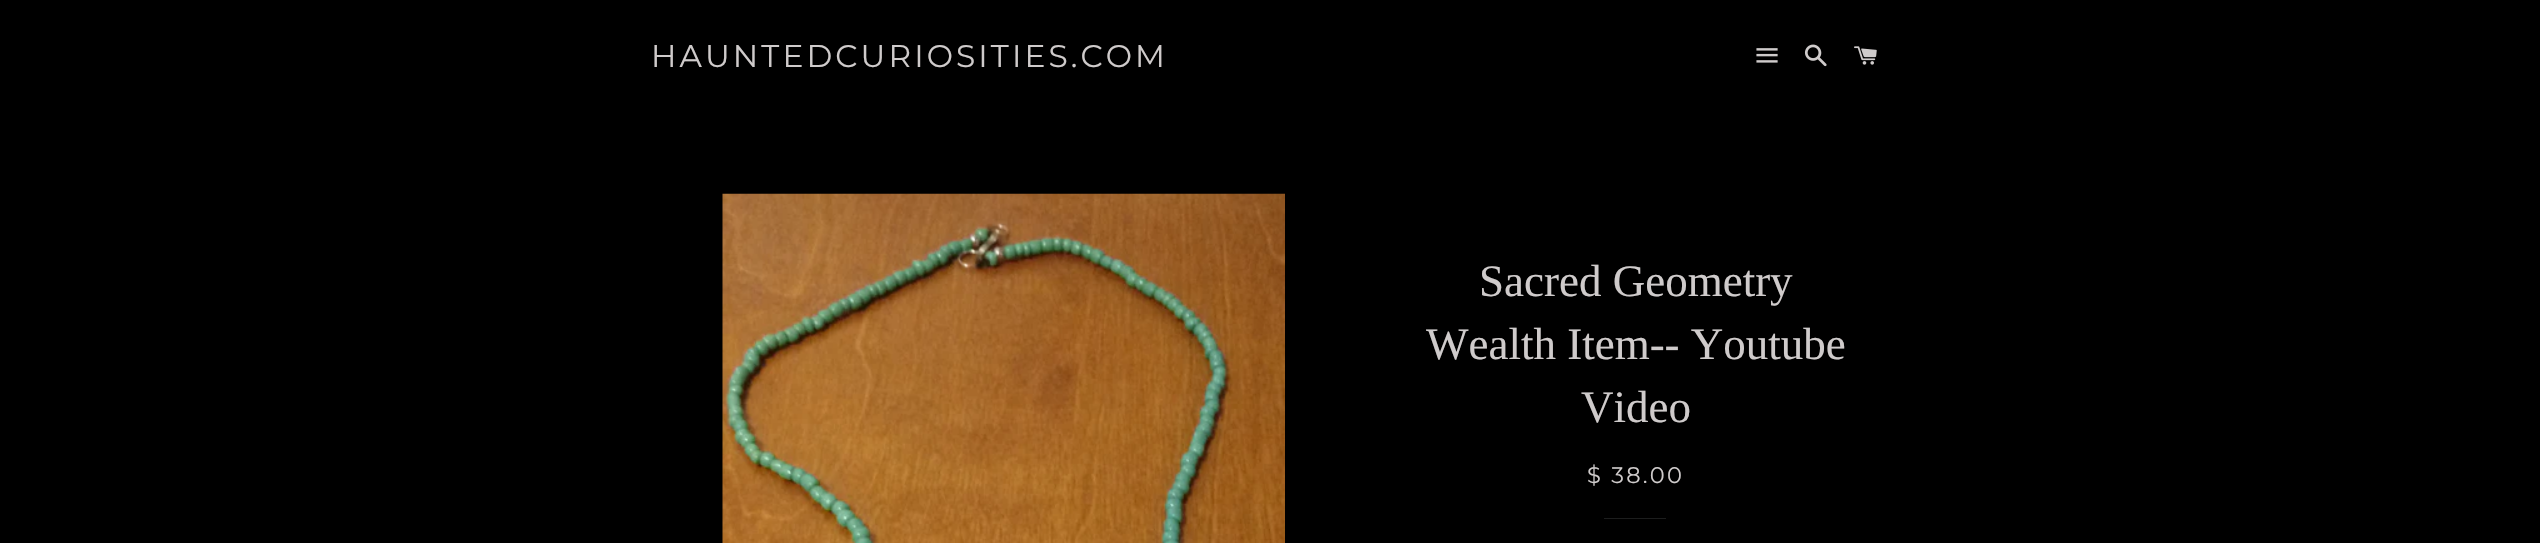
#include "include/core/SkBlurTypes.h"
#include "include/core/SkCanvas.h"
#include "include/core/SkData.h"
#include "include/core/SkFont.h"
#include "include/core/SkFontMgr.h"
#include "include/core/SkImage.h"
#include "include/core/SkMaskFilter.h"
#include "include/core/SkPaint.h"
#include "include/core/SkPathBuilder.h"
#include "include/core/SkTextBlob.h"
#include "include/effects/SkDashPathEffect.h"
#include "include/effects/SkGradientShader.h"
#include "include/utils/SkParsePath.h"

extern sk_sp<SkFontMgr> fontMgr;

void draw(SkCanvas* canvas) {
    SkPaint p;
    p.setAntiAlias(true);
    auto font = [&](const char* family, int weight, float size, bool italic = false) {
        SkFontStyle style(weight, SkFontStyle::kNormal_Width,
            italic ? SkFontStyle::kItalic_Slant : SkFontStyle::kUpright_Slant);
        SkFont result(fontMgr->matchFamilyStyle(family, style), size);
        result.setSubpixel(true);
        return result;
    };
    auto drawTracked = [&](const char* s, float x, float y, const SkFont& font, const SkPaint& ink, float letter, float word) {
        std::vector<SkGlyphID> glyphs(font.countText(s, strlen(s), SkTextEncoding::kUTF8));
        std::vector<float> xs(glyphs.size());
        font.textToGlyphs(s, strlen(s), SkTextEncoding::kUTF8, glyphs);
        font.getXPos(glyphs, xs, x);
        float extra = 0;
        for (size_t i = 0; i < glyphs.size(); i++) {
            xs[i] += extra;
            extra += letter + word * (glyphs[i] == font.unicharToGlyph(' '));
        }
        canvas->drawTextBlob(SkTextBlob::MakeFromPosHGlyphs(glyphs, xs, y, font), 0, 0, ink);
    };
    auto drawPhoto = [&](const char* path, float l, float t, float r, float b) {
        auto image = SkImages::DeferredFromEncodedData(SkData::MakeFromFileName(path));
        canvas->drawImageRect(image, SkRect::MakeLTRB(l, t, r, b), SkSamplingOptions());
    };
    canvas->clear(0xFF000000);
    auto font1 = font("Montserrat", 100, 31.25f);
    p.setColor(0xFFCFCBCB);
    drawTracked("HAUNTEDCURIOSITIES.COM", 651, 67, font1, p, 3.1f, 0);
    drawPhoto("media/1.png", 1756, 48, 1778, 63);
    drawPhoto("media/2.png", 1804, 44, 1827, 67);
    drawPhoto("media/3.png", 1854, 46, 1877, 65);
    drawPhoto("media/4.png", 722, 193, 1285, 543);
    auto font2 = font("Liberation Serif", 400, 45);
    {
        const struct { const char* s; float x, y; } items[] = {
            {"Sacred Geometry", 1479, 296},
            {"Wealth Item-- Youtube", 1426, 359},
            {"Video", 1581, 422},
        };
        for (auto [s, x, y] : items) {
            canvas->drawString(s, x, y, font2, p);
        }
    }
    auto font3 = font("Montserrat", 100, 22.5f);
    drawTracked("$ 38.00", 1587, 483, font3, p, 2.25f, 0);
    p.setColor(0xFF1C1D1D);
    canvas->drawRect(SkRect::MakeLTRB(1604, 518, 1666, 519), p);
}
